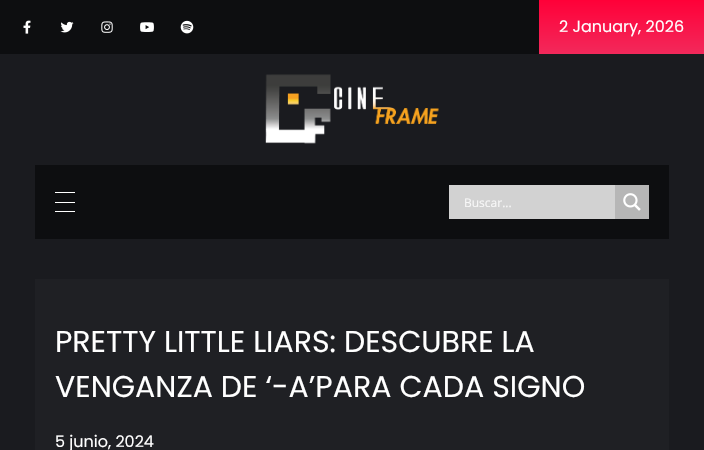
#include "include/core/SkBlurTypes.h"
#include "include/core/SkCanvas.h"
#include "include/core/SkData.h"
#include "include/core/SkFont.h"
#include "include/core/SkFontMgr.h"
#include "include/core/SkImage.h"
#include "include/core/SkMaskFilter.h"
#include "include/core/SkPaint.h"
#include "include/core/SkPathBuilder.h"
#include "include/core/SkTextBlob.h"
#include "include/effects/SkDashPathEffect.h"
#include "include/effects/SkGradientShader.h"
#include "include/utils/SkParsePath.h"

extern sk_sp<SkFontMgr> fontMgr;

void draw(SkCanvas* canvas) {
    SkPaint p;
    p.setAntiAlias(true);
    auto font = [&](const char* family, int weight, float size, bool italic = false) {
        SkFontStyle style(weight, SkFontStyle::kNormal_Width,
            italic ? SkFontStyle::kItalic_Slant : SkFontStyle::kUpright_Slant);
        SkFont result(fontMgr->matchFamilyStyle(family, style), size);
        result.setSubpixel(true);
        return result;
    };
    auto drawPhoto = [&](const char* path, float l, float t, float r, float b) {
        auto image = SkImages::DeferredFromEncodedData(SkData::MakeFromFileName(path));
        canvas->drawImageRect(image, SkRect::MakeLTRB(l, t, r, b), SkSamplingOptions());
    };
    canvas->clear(0xFF1A1B1F);
    p.setColor(0xFF0D0E10);
    canvas->drawRect(SkRect::MakeLTRB(0, 0, 539, 54), p);
    drawPhoto("media/1.png", 23, 20, 31, 34);
    drawPhoto("media/2.png", 60, 21, 74, 33);
    drawPhoto("media/3.png", 101, 21, 113, 33);
    drawPhoto("media/4.png", 140, 22, 154, 32);
    drawPhoto("media/5.png", 180, 20, 194, 34);
    {
        const SkColor colors[] = {0xFFFF0038, 0xFFF2295B};
        const float stops[] = {0, 1};
        const SkPoint ends[] = {{622, 0}, {622, 54}};
        p.setShader(SkGradientShader::MakeLinear(ends, colors, stops, 2, SkTileMode::kClamp));
        p.setAlpha(255);
    }
    canvas->drawRect(SkRect::MakeLTRB(539, 0, 704, 54), p);
    auto font1 = font("Poppins", 400, 16);
    p.setShader(nullptr);
    p.setColor(0xFFFFFFFF);
    canvas->drawString("2 January, 2026", 559, 32, font1, p);
    drawPhoto("media/6.png", 265, 74, 439, 144);
    {
        const struct { float l, t, r, b; SkColor color; } items[] = {
            {35, 165, 669, 239, 0xFF0D0E10},
            {55, 192, 75, 193, 0xFFFFFFFF},
            {55, 202, 75, 203, 0xFFFFFFFF},
            {55, 211, 75, 212, 0xFFFFFFFF},
            {449, 185, 615, 219, 0xFFD2D2D2},
        };
        for (auto [l, t, r, b, color] : items) {
            p.setColor(color);
            canvas->drawRect(SkRect::MakeLTRB(l, t, r, b), p);
        }
    }
    auto font2 = font("Open Sans", 400, 12);
    p.setColor(0xFFF8F8F8);
    canvas->drawString("Buscar...", 464, 207, font2, p);
    p.setColor(0xFFB6B6B6);
    canvas->drawRect(SkRect::MakeLTRB(615, 185, 649, 219), p);
    drawPhoto("media/7.png", 623, 193, 641, 211);
    p.setColor(0xFF1F2024);
    canvas->drawRect(SkRect::MakeLTRB(35, 279, 669, 450), p);
    auto font3 = font("Poppins", 400, 30);
    p.setColor(0xFFFFFFFF);
    canvas->drawString("PRETTY LITTLE LIARS: DESCUBRE LA", 55, 352, font3, p);
    canvas->drawString("VENGANZA DE ‘-A’PARA CADA SIGNO", 55, 397, font3, p);
    canvas->drawString("5 junio, 2024", 55, 447, font1, p);
}
